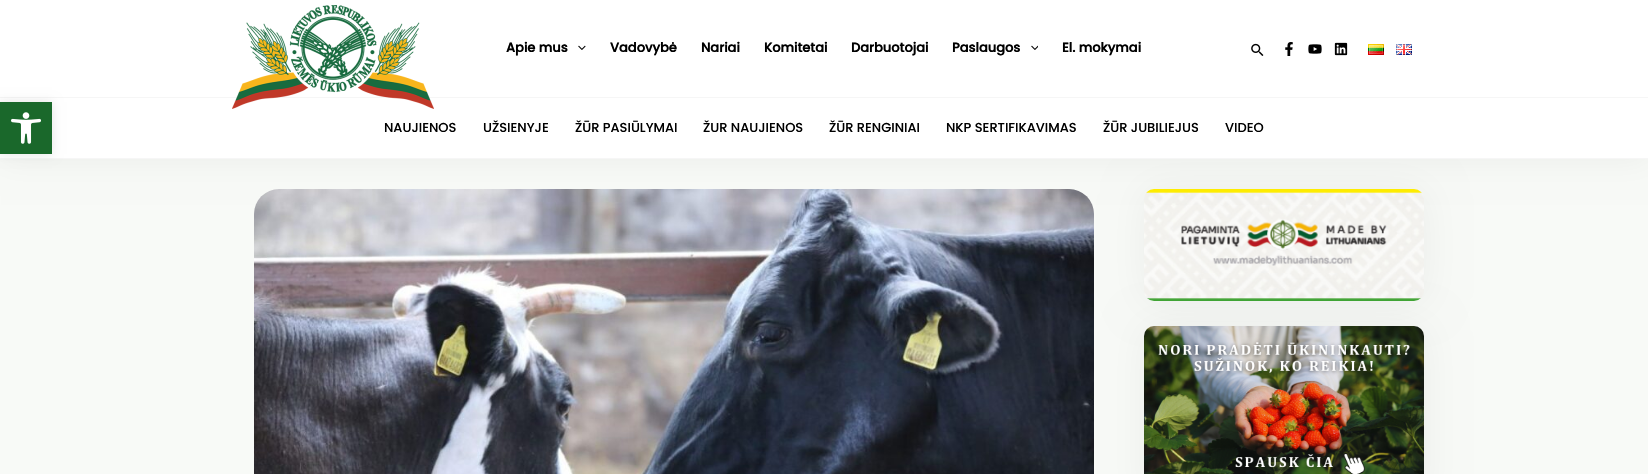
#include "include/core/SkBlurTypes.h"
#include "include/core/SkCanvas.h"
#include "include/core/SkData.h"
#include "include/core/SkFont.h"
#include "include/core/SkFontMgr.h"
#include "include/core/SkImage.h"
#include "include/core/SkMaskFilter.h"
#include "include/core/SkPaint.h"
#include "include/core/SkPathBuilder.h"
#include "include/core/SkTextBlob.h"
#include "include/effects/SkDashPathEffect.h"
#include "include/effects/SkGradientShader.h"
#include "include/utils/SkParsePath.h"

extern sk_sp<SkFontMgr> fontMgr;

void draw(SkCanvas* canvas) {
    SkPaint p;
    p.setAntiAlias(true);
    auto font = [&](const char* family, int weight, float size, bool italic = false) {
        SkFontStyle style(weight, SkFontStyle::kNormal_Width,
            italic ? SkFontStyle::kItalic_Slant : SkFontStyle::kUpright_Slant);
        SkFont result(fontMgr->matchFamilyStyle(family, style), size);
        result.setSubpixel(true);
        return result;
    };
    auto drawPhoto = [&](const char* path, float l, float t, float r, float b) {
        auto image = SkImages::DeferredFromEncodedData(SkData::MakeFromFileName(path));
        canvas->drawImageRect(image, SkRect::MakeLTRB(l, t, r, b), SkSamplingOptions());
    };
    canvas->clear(0xFFF8FAF7);
    drawPhoto("media/11.png", 254, 189, 1094, 474);
    p.setColor(0x0D000000);
    p.setMaskFilter(SkMaskFilter::MakeBlur(kNormal_SkBlurStyle, 20));
    canvas->drawRoundRect(SkRect::MakeLTRB(1145, 190, 1425, 302), 10, 10, p);
    p.setMaskFilter(nullptr);
    drawPhoto("media/12.png", 1144, 189, 1424, 301);
    p.setMaskFilter(SkMaskFilter::MakeBlur(kNormal_SkBlurStyle, 15));
    canvas->drawRect(SkRect::MakeLTRB(1, 1, 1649, 160), p);
    p.setMaskFilter(nullptr);
    {
        const struct { float l, t, r, b; SkColor color; } items[] = {
            {0, 0, 1648, 97, 0xFFFFFFFF},
            {0, 97, 1648, 98, 0xFFF6F6F6},
            {0, 98, 1648, 158, 0xFFFFFFFF},
            {0, 158, 1648, 159, 0xFFF6F6F6},
        };
        for (auto [l, t, r, b, color] : items) {
            p.setColor(color);
            canvas->drawRect(SkRect::MakeLTRB(l, t, r, b), p);
        }
    }
    p.setColor(0x1A000000);
    p.setMaskFilter(SkMaskFilter::MakeBlur(kNormal_SkBlurStyle, 5));
    canvas->drawRect(SkRect::MakeLTRB(0, 102, 52, 154), p);
    p.setMaskFilter(nullptr);
    p.setColor(0xFF1A682B);
    canvas->drawRect(SkRect::MakeLTRB(0, 102, 52, 154), p);
    drawPhoto("media/1.png", 11, 112, 41, 144);
    drawPhoto("media/2.png", 232, 5, 434, 109);
    auto font1 = font("Poppins", 700, 13);
    p.setColor(0xFF000000);
    canvas->drawString("Apie mus", 506, 52, font1, p);
    drawPhoto("media/3.png", 578, 45, 586, 50);
    {
        const struct { const char* s; float x, y; } items[] = {
            {"Vadovybė", 610, 52},
            {"Nariai", 701, 52},
            {"Komitetai", 764, 52},
            {"Darbuotojai", 851, 52},
            {"Paslaugos", 952, 52},
        };
        for (auto [s, x, y] : items) {
            canvas->drawString(s, x, y, font1, p);
        }
    }
    drawPhoto("media/4.png", 1031, 45, 1038, 50);
    canvas->drawString("El. mokymai", 1062, 52, font1, p);
    drawPhoto("media/5.png", 1251, 43, 1264, 56);
    drawPhoto("media/6.png", 1285, 42, 1293, 56);
    drawPhoto("media/7.png", 1308, 44, 1322, 54);
    drawPhoto("media/8.png", 1334, 42, 1348, 56);
    drawPhoto("media/9.png", 1368, 44, 1384, 55);
    drawPhoto("media/10.png", 1396, 44, 1412, 55);
    auto font2 = font("Poppins", 500, 13);
    {
        const struct { const char* s; float x, y; } items[] = {
            {"NAUJIENOS", 384, 132},
            {"UŽSIENYJE", 483, 132},
            {"ŽŪR PASIŪLYMAI", 575, 132},
            {"ŽUR NAUJIENOS", 703, 132},
            {"ŽŪR RENGINIAI", 829, 132},
            {"NKP SERTIFIKAVIMAS", 946, 132},
            {"ŽŪR JUBILIEJUS", 1103, 132},
            {"VIDEO", 1225, 132},
        };
        for (auto [s, x, y] : items) {
            canvas->drawString(s, x, y, font2, p);
        }
    }
    p.setColor(0x0D000000);
    p.setMaskFilter(SkMaskFilter::MakeBlur(kNormal_SkBlurStyle, 20));
    canvas->drawRoundRect(SkRect::MakeLTRB(1145, 327, 1425, 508), 10, 10, p);
    p.setMaskFilter(nullptr);
    drawPhoto("media/13.png", 1144, 326, 1424, 474);
}
